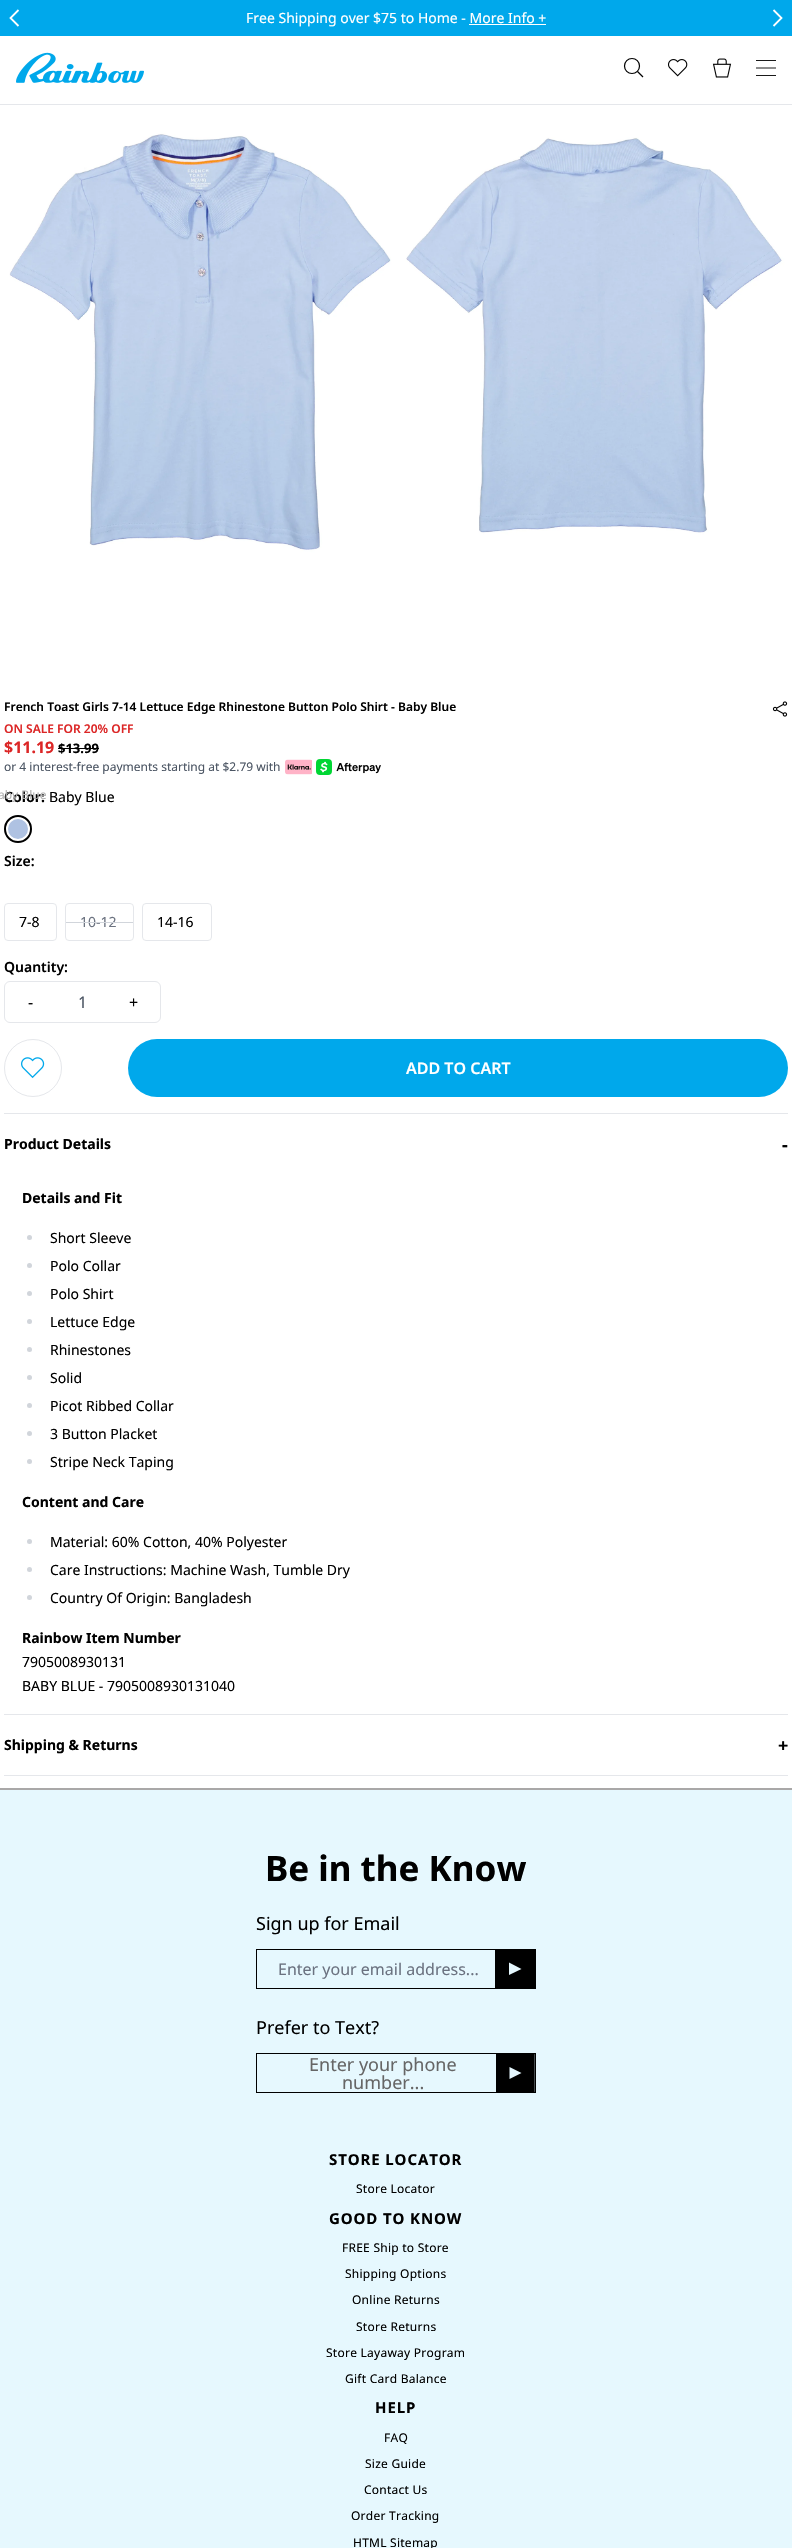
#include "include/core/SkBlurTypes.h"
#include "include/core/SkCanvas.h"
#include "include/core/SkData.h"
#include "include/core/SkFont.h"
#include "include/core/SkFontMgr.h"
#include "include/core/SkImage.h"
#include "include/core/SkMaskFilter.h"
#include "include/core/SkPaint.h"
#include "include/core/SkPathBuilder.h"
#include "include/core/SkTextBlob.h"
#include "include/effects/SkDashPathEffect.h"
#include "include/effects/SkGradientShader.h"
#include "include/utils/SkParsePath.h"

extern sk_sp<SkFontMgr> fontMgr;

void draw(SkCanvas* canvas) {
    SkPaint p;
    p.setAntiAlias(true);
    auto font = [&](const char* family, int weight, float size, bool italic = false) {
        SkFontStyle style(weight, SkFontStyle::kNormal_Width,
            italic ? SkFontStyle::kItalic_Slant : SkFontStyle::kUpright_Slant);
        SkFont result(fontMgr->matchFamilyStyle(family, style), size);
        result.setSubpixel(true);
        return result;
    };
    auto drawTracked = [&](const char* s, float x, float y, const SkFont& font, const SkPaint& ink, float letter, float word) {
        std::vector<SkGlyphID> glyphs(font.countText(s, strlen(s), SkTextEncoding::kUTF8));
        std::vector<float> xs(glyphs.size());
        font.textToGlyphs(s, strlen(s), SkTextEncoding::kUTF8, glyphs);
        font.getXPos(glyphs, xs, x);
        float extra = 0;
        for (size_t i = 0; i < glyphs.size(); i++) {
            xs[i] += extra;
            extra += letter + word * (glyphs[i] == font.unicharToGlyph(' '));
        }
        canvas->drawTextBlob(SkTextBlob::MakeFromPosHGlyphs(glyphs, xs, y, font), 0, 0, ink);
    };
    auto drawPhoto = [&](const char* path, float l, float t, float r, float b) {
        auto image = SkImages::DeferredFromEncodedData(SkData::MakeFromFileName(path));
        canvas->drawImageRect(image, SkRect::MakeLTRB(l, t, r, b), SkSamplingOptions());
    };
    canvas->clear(0xFFFFFFFF);
    p.setColor(0xFF00A8EB);
    canvas->drawRect(SkRect::MakeLTRB(0, 0, 792, 36), p);
    p.setStyle(SkPaint::kStroke_Style);
    p.setStrokeWidth(1.8f);
    p.setColor(0xFFFFFFFF);
    canvas->drawPath(SkPathBuilder().moveTo(18.5f, 26).lineTo(10.5f, 18).lineTo(18.5f, 10).detach(), p);
    auto font1 = font("Noto Sans", 400, 14);
    p.setStyle(SkPaint::kFill_Style);
    canvas->drawString("Free Shipping over $75 to Home - More Info +", 246, 23, font1, p);
    canvas->drawRect(SkRect::MakeLTRB(469, 24, 546, 25), p);
    p.setStyle(SkPaint::kStroke_Style);
    canvas->drawPath(SkPathBuilder().moveTo(773.5f, 10).lineTo(781.5f, 18).lineTo(773.5f, 26).detach(), p);
    p.setStyle(SkPaint::kFill_Style);
    p.setColor(0xFFE5E7EB);
    canvas->drawRect(SkRect::MakeLTRB(0, 104, 792, 105), p);
    drawPhoto("media/1.png", 16, 52, 144, 83);
    p.setStyle(SkPaint::kStroke_Style);
    p.setStrokeWidth(1.2f);
    p.setColor(0xFF000000);
    canvas->drawCircle(632, 66, 7.5f, p);
    canvas->drawPath(SkPathBuilder().moveTo(643, 77).lineTo(637.5f, 71.5f).detach(), p);
    drawPhoto("media/2.png", 668, 59, 688, 77);
    drawPhoto("media/3.png", 712, 58, 732, 78);
    p.setStrokeWidth(0.9f);
    canvas->drawPath(SkPathBuilder().moveTo(756, 60.5f).lineTo(776, 60.5f).moveTo(756, 68).lineTo(776, 68).moveTo(756, 75.5f).lineTo(776, 75.5f).detach(), p);
    drawPhoto("media/4.png", 4, 109, 396, 691);
    drawPhoto("media/5.png", 398, 109, 788, 691);
    auto font2 = font("Noto Sans", 600, 12);
    p.setStyle(SkPaint::kFill_Style);
    canvas->drawString("French Toast Girls 7-14 Lettuce Edge Rhinestone Button Polo Shirt - Baby Blue", 4, 711, font2, p);
    drawPhoto("media/6.png", 772, 701, 788, 717);
    p.setColor(0xFFDC2626);
    canvas->drawString("ON SALE FOR 20% OFF", 4, 733, font2, p);
    auto font3 = font("Noto Sans", 700, 16);
    canvas->drawString("$11.19", 4, 753, font3, p);
    auto font4 = font("Noto Sans", 700, 13);
    p.setColor(0xFF000000);
    canvas->drawString("$13.99", 58, 753, font4, p);
    canvas->drawRect(SkRect::MakeLTRB(58, 748, 99, 749), p);
    auto font5 = font("Noto Sans", 400, 12);
    p.setColor(0xFF4B5563);
    canvas->drawString("or 4 interest-free payments starting at $2.79 with", 4, 771, font5, p);
    drawPhoto("media/7.png", 285, 759, 312, 775);
    drawPhoto("media/8.png", 316, 759, 381, 775);
    auto font6 = font("Noto Sans", 700, 14);
    p.setColor(0xFF000000);
    canvas->drawString("Color:", 4, 802, font6, p);
    canvas->drawString("Baby Blue", 49, 802, font1, p);
    p.setStyle(SkPaint::kStroke_Style);
    p.setStrokeWidth(2);
    canvas->drawCircle(18, 829, 13, p);
    p.setStyle(SkPaint::kFill_Style);
    p.setColor(0xFFB0B0B0);
    canvas->drawString("aby Blue", -2, 799, font5, p);
    drawPhoto("media/9.png", 8, 819, 28, 839);
    auto font7 = font("Noto Sans", 600, 14);
    p.setColor(0xFF000000);
    canvas->drawString("Size:", 4, 866, font7, p);
    p.setStyle(SkPaint::kStroke_Style);
    p.setStrokeWidth(1);
    p.setColor(0xFFE5E7EB);
    canvas->drawRoundRect(SkRect::MakeLTRB(4.5f, 903.5f, 56.5f, 940.5f), 3.5f, 3.5f, p);
    p.setStyle(SkPaint::kFill_Style);
    p.setColor(0xFF000000);
    canvas->drawString("7-8", 19, 927, font1, p);
    p.setStyle(SkPaint::kStroke_Style);
    p.setColor(0xFFE5E7EB);
    canvas->drawRoundRect(SkRect::MakeLTRB(65.5f, 903.5f, 133.5f, 940.5f), 3.5f, 3.5f, p);
    p.setStyle(SkPaint::kFill_Style);
    p.setColor(0xFF6B7280);
    canvas->drawString("10-12", 80, 927, font1, p);
    p.setColor(0xFFD1D5DB);
    canvas->drawRect(SkRect::MakeLTRB(66, 922, 133, 923), p);
    p.setStyle(SkPaint::kStroke_Style);
    p.setColor(0xFFE5E7EB);
    canvas->drawRoundRect(SkRect::MakeLTRB(142.5f, 903.5f, 211.5f, 940.5f), 3.5f, 3.5f, p);
    p.setStyle(SkPaint::kFill_Style);
    p.setColor(0xFF000000);
    canvas->drawString("14-16", 157, 927, font1, p);
    canvas->drawString("Quantity:", 4, 972, font7, p);
    p.setStyle(SkPaint::kStroke_Style);
    p.setColor(0xFFE5E7EB);
    canvas->drawRoundRect(SkRect::MakeLTRB(4.5f, 981.5f, 160.5f, 1022.5f), 5.5f, 5.5f, p);
    auto font8 = font("Noto Sans", 400, 16);
    p.setStyle(SkPaint::kFill_Style);
    p.setColor(0xFF000000);
    canvas->drawString("-", 28, 1008, font8, p);
    p.setColor(0xFF4B5563);
    canvas->drawString("1", 78, 1008, font8, p);
    p.setColor(0xFF000000);
    canvas->drawString("+", 129, 1008, font8, p);
    p.setStyle(SkPaint::kStroke_Style);
    p.setColor(0xFFE5E7EB);
    canvas->drawCircle(33, 1068, 28.5f, p);
    drawPhoto("media/10.png", 21, 1057, 45, 1079);
    p.setStyle(SkPaint::kFill_Style);
    p.setColor(0xFF00A8EB);
    canvas->drawRoundRect(SkRect::MakeLTRB(128, 1039, 788, 1097), 29, 29, p);
    auto font9 = font("Noto Sans", 600, 16);
    p.setColor(0xFFFFFFFF);
    canvas->drawString("ADD TO CART", 406, 1074, font9, p);
    p.setColor(0xFFE5E7EB);
    canvas->drawRect(SkRect::MakeLTRB(4, 1113, 788, 1114), p);
    canvas->drawRect(SkRect::MakeLTRB(4, 1714, 788, 1715), p);
    p.setColor(0xFF000000);
    canvas->drawString("Product Details", 4, 1149, font6, p);
    auto font10 = font("Noto Sans", 700, 18);
    canvas->drawString("-", 782, 1151, font10, p);
    canvas->drawString("Details and Fit", 22, 1203, font6, p);
    p.setColor(0xFFD1D5DB);
    canvas->drawCircle(29.5f, 1237.5f, 2.5f, p);
    p.setColor(0xFF000000);
    canvas->drawString("Short Sleeve", 50, 1243, font1, p);
    p.setColor(0xFFD1D5DB);
    canvas->drawCircle(29.5f, 1265.5f, 2.5f, p);
    p.setColor(0xFF000000);
    canvas->drawString("Polo Collar", 50, 1271, font1, p);
    p.setColor(0xFFD1D5DB);
    canvas->drawCircle(29.5f, 1293.5f, 2.5f, p);
    p.setColor(0xFF000000);
    canvas->drawString("Polo Shirt", 50, 1299, font1, p);
    p.setColor(0xFFD1D5DB);
    canvas->drawCircle(29.5f, 1321.5f, 2.5f, p);
    p.setColor(0xFF000000);
    canvas->drawString("Lettuce Edge", 50, 1327, font1, p);
    p.setColor(0xFFD1D5DB);
    canvas->drawCircle(29.5f, 1349.5f, 2.5f, p);
    p.setColor(0xFF000000);
    canvas->drawString("Rhinestones", 50, 1355, font1, p);
    p.setColor(0xFFD1D5DB);
    canvas->drawCircle(29.5f, 1377.5f, 2.5f, p);
    p.setColor(0xFF000000);
    canvas->drawString("Solid", 50, 1383, font1, p);
    p.setColor(0xFFD1D5DB);
    canvas->drawCircle(29.5f, 1405.5f, 2.5f, p);
    p.setColor(0xFF000000);
    canvas->drawString("Picot Ribbed Collar", 50, 1411, font1, p);
    p.setColor(0xFFD1D5DB);
    canvas->drawCircle(29.5f, 1433.5f, 2.5f, p);
    p.setColor(0xFF000000);
    canvas->drawString("3 Button Placket", 50, 1439, font1, p);
    p.setColor(0xFFD1D5DB);
    canvas->drawCircle(29.5f, 1461.5f, 2.5f, p);
    p.setColor(0xFF000000);
    canvas->drawString("Stripe Neck Taping", 50, 1467, font1, p);
    canvas->drawString("Content and Care", 22, 1507, font6, p);
    p.setColor(0xFFD1D5DB);
    canvas->drawCircle(29.5f, 1541.5f, 2.5f, p);
    p.setColor(0xFF000000);
    canvas->drawString("Material: 60% Cotton, 40% Polyester", 50, 1547, font1, p);
    p.setColor(0xFFD1D5DB);
    canvas->drawCircle(29.5f, 1569.5f, 2.5f, p);
    p.setColor(0xFF000000);
    canvas->drawString("Care Instructions: Machine Wash, Tumble Dry", 50, 1575, font1, p);
    p.setColor(0xFFD1D5DB);
    canvas->drawCircle(29.5f, 1597.5f, 2.5f, p);
    p.setColor(0xFF000000);
    canvas->drawString("Country Of Origin: Bangladesh", 50, 1603, font1, p);
    canvas->drawString("Rainbow Item Number", 22, 1643, font6, p);
    canvas->drawString("7905008930131", 22, 1667, font1, p);
    canvas->drawString("BABY BLUE - 7905008930131040", 22, 1691, font1, p);
    p.setColor(0xFFE5E7EB);
    canvas->drawRect(SkRect::MakeLTRB(4, 1775, 788, 1776), p);
    p.setColor(0xFF000000);
    canvas->drawString("Shipping & Returns", 4, 1750, font6, p);
    canvas->drawString("+", 778, 1752, font10, p);
    p.setColor(0xFFA9A8A8);
    canvas->drawRect(SkRect::MakeLTRB(0, 1788, 792, 1790), p);
    p.setColor(0xFFE6F8FE);
    canvas->drawRect(SkRect::MakeLTRB(0, 1790, 792, 2548), p);
    auto font11 = font("Noto Sans", 700, 35);
    p.setColor(0xFF000000);
    canvas->drawString("Be in the Know", 265, 1881, font11, p);
    auto font12 = font("Noto Sans", 400, 18);
    canvas->drawString("Sign up for Email", 256, 1930, font12, p);
    p.setStyle(SkPaint::kStroke_Style);
    canvas->drawRect(SkRect::MakeLTRB(256.5f, 1949.5f, 535.5f, 1988.5f), p);
    p.setStyle(SkPaint::kFill_Style);
    canvas->drawRect(SkRect::MakeLTRB(495, 1950, 535, 1988), p);
    p.setColor(0xFFE5F7FD);
    canvas->drawPath(SkPathBuilder(SkPathFillType::kEvenOdd).moveTo(521.5f, 1969).lineTo(509, 1975).lineTo(509, 1962.5f).close().detach(), p);
    p.setColor(0xFF6B7280);
    canvas->drawString("Enter your email address...", 278, 1975, font8, p);
    p.setColor(0xFF000000);
    canvas->drawString("Prefer to Text?", 256, 2034, font12, p);
    p.setStyle(SkPaint::kStroke_Style);
    canvas->drawRect(SkRect::MakeLTRB(256.5f, 2053.5f, 535.5f, 2092.5f), p);
    p.setStyle(SkPaint::kFill_Style);
    p.setColor(0xFF666666);
    canvas->drawString("Enter your phone", 309, 2071, font12, p);
    p.setColor(0xFF000000);
    canvas->drawRect(SkRect::MakeLTRB(496, 2054, 534, 2092), p);
    canvas->save();
    canvas->clipRect(SkRect::MakeLTRB(496, 2053, 535, 2092));
    p.setStyle(SkPaint::kStroke_Style);
    p.setStrokeWidth(0.7f);
    canvas->drawPath(SkPathBuilder().moveTo(496.5f, 2054).lineTo(534.5f, 2054).lineTo(534.5f, 2092).lineTo(496.5f, 2092).close().detach(), p);
    canvas->restore();
    p.setStyle(SkPaint::kFill_Style);
    p.setColor(0xFFE5F7FD);
    canvas->drawPath(SkPathBuilder(SkPathFillType::kEvenOdd).moveTo(521.5f, 2073).lineTo(509.5f, 2079).lineTo(509.5f, 2067).close().detach(), p);
    p.setColor(0xFF666666);
    canvas->drawString("number...", 342, 2089, font12, p);
    auto font13 = font("Noto Sans", 700, 15);
    p.setColor(0xFF000000);
    drawTracked("STORE LOCATOR", 329, 2165, font13, p, 0.9f, 0);
    drawTracked("Store Locator", 356, 2193, font5, p, 0.25f, 0);
    drawTracked("GOOD TO KNOW", 329, 2224, font13, p, 0.9f, 0);
    {
        const struct { const char* s; float x, y; } items[] = {
            {"FREE Ship to Store", 342, 2252},
            {"Shipping Options", 345, 2278},
            {"Online Returns", 352, 2304},
            {"Store Returns", 356, 2331},
            {"Store Layaway Program", 326, 2357},
            {"Gift Card Balance", 345, 2383},
        };
        for (auto [s, x, y] : items) {
            drawTracked(s, x, y, font5, p, 0.25f, 0);
        }
    }
    drawTracked("HELP", 375, 2413, font13, p, 0.9f, 0);
    {
        const struct { const char* s; float x, y; } items[] = {
            {"FAQ", 384, 2442},
            {"Size Guide", 365, 2468},
            {"Contact Us", 364, 2494},
            {"Order Tracking", 351, 2520},
            {"HTML Sitemap", 353, 2547},
        };
        for (auto [s, x, y] : items) {
            drawTracked(s, x, y, font5, p, 0.25f, 0);
        }
    }
}
